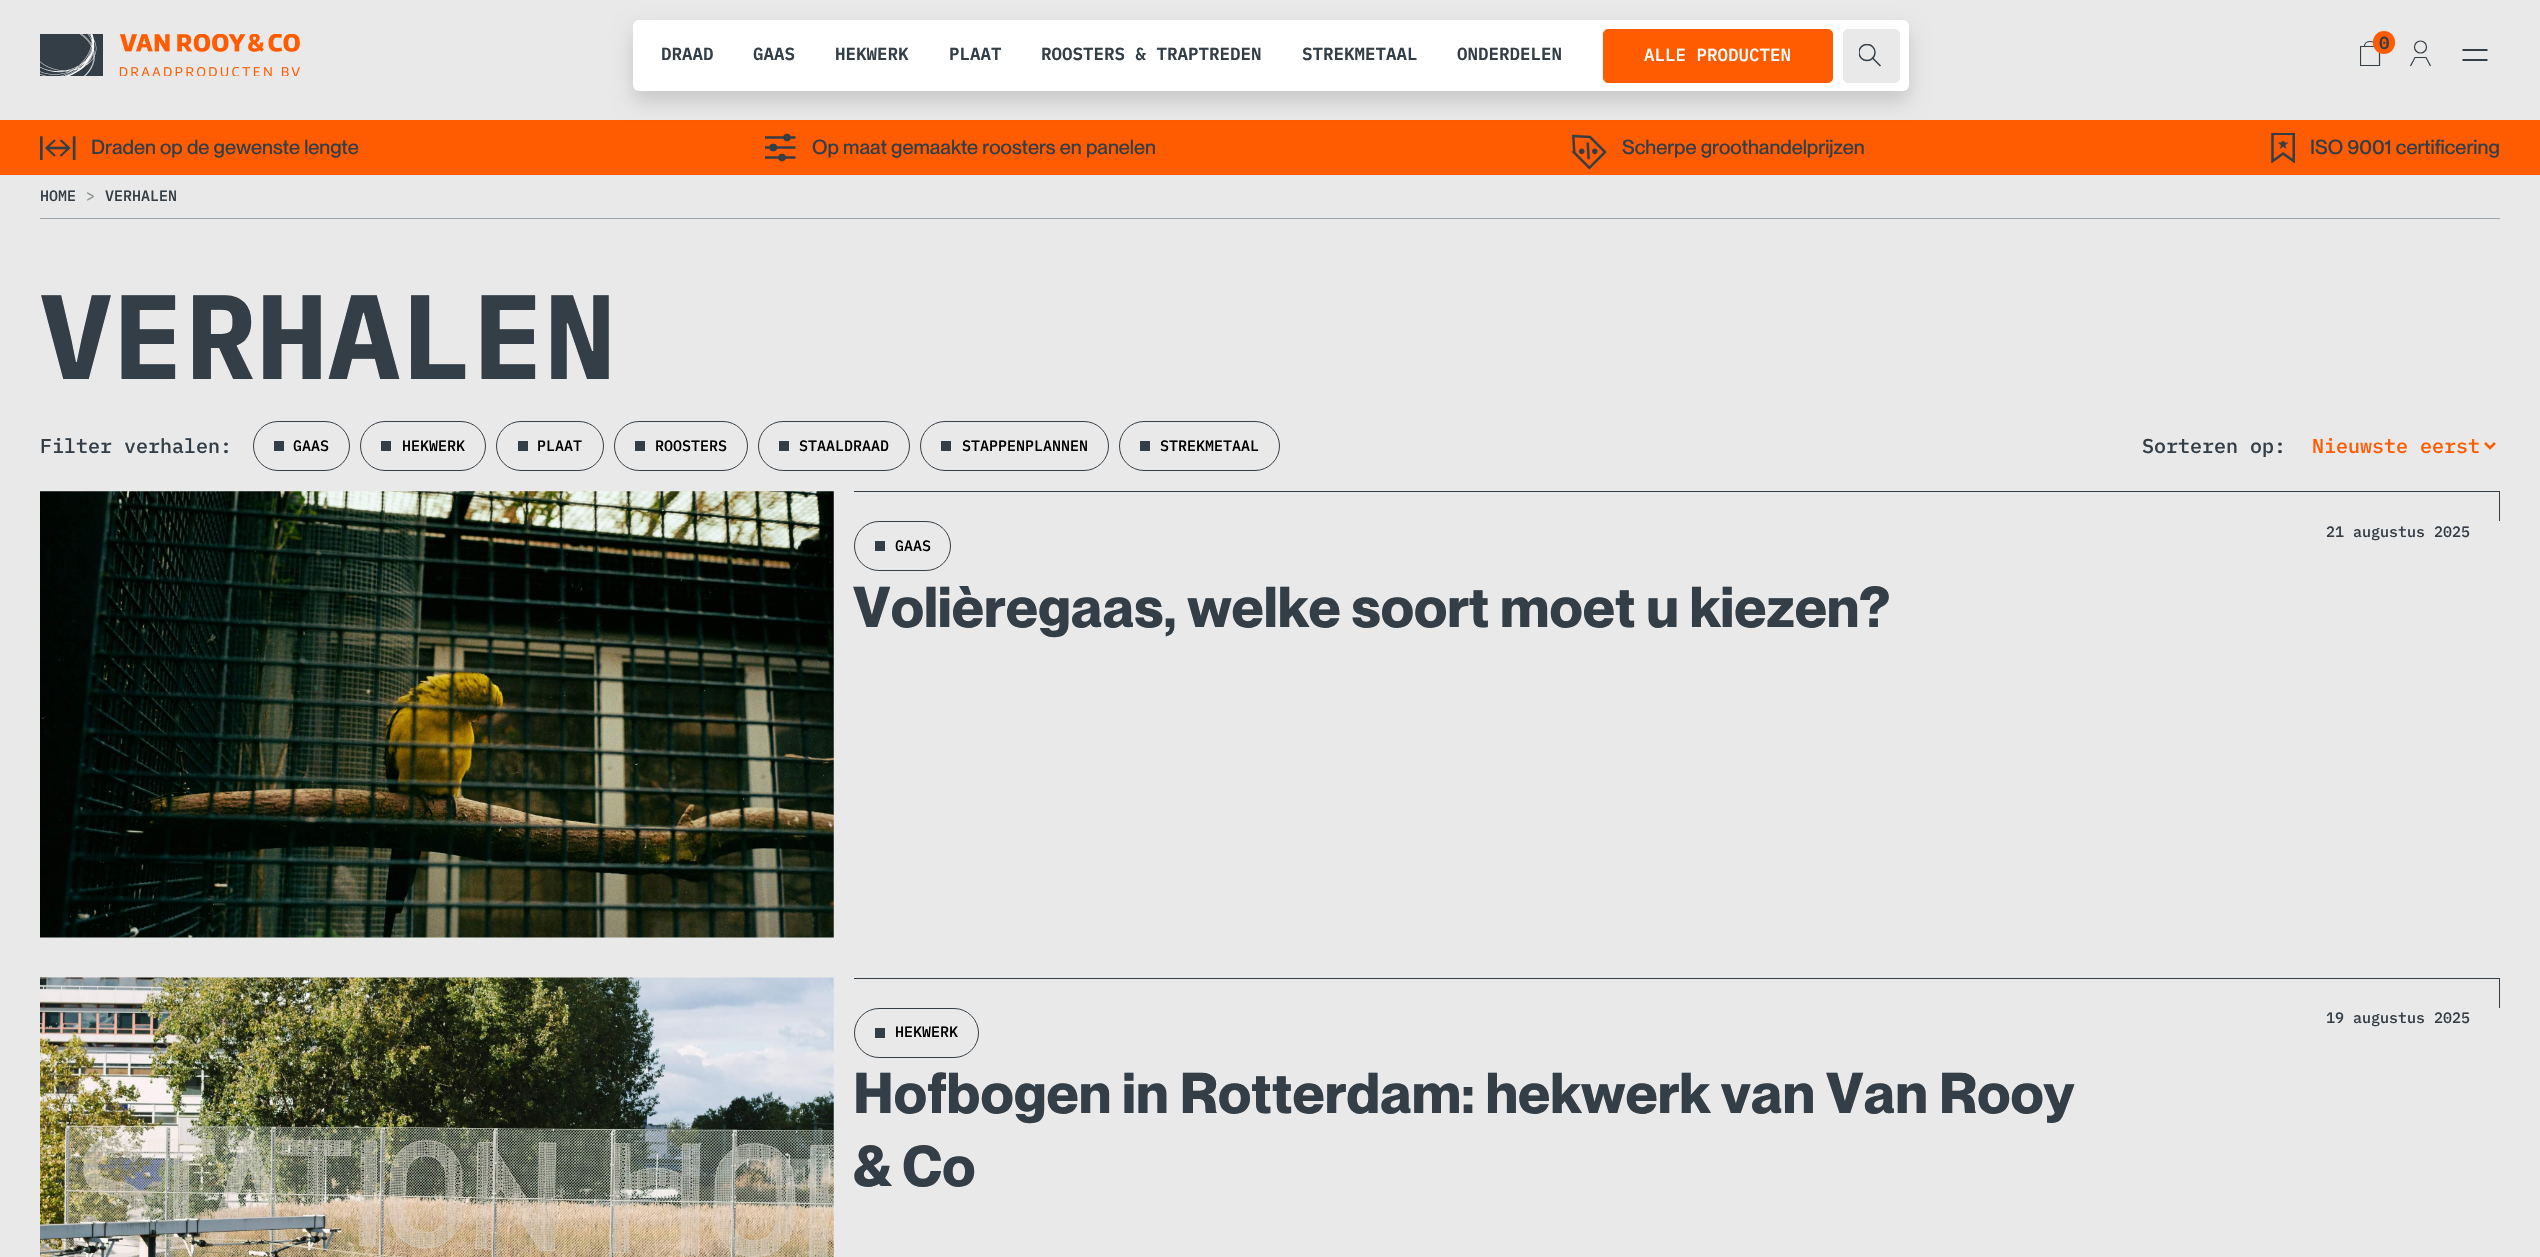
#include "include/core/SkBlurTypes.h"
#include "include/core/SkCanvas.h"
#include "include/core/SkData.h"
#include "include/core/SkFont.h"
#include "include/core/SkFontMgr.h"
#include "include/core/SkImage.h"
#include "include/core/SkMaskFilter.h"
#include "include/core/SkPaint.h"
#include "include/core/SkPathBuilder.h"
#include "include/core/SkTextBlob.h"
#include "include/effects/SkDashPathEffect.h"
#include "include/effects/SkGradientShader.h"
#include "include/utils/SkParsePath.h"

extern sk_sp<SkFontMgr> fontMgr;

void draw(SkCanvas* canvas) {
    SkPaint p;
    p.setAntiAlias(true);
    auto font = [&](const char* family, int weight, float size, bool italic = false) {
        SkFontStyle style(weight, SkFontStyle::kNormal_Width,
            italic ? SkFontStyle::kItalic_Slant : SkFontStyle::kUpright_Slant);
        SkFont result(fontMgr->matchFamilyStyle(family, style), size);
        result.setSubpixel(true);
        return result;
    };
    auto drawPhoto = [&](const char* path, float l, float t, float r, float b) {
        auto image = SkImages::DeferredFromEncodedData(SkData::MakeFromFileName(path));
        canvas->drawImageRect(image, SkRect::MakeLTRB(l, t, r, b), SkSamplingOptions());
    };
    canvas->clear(0xFFE9E9E9);
    drawPhoto("media/1.png", 40, 34, 300, 76);
    canvas->save();
    canvas->clipRect(SkRect::MakeLTRB(2360, 40, 2390, 70));
    p.setStyle(SkPaint::kStroke_Style);
    p.setStrokeWidth(1.2f);
    p.setColor(0xFF343E47);
    canvas->drawPath(SkPathBuilder().moveTo(2360.5f, 46.5f).lineTo(2379.5f, 46.5f).lineTo(2379.5f, 65.5f).lineTo(2360.5f, 65.5f).close().moveTo(2375.5f, 46).cubicTo(2375.5f, 40, 2364.5f, 40, 2364.5f, 46).detach(), p);
    canvas->restore();
    p.setStyle(SkPaint::kFill_Style);
    p.setColor(0xFFFF5B00);
    canvas->drawRoundRect(SkRect::MakeLTRB(2373, 31, 2395, 54), 11, 11, p);
    auto font1 = font("IBM Plex Mono", 600, 17.5f);
    p.setColor(0xFF343E47);
    canvas->drawString("0", 2379, 49, font1, p);
    p.setStyle(SkPaint::kStroke_Style);
    canvas->drawCircle(2420.5f, 47, 6, p);
    canvas->drawPath(SkPathBuilder().moveTo(2410.5f, 66).lineTo(2415, 57.5f).lineTo(2426, 57.5f).lineTo(2430.5f, 66).detach(), p);
    p.setStrokeWidth(2.1f);
    canvas->drawPath(SkPathBuilder().moveTo(2487.5f, 60).lineTo(2462.5f, 60).moveTo(2487.5f, 50).lineTo(2462.5f, 50).detach(), p);
    p.setStyle(SkPaint::kFill_Style);
    p.setColor(0xFFFF5B00);
    canvas->drawRect(SkRect::MakeLTRB(0, 120, 2540, 175), p);
    p.setColor(0x26000000);
    p.setMaskFilter(SkMaskFilter::MakeBlur(kNormal_SkBlurStyle, 10));
    canvas->drawRoundRect(SkRect::MakeLTRB(633, 30, 1909, 101), 6, 6, p);
    p.setMaskFilter(nullptr);
    p.setColor(0xFFFFFFFF);
    canvas->drawRoundRect(SkRect::MakeLTRB(633, 20, 1909, 91), 6, 6, p);
    p.setColor(0xFF343E47);
    {
        const struct { const char* s; float x, y; } items[] = {
            {"DRAAD", 661, 60},
            {"GAAS", 753, 60},
            {"HEKWERK", 835, 60},
            {"PLAAT", 949, 60},
            {"ROOSTERS & TRAPTREDEN", 1041, 60},
            {"STREKMETAAL", 1302, 60},
            {"ONDERDELEN", 1457, 60},
        };
        for (auto [s, x, y] : items) {
            canvas->drawString(s, x, y, font1, p);
        }
    }
    p.setColor(0xFFFF5B00);
    canvas->drawRoundRect(SkRect::MakeLTRB(1603.5f, 29.5f, 1832.5f, 82.5f), 4.5f, 4.5f, p);
    p.setStyle(SkPaint::kStroke_Style);
    p.setStrokeWidth(1);
    canvas->drawRoundRect(SkRect::MakeLTRB(1603.5f, 29.5f, 1832.5f, 82.5f), 4.5f, 4.5f, p);
    auto font2 = font("IBM Plex Mono", 500, 17.5f);
    p.setStyle(SkPaint::kFill_Style);
    p.setColor(0xFFFFFFFF);
    canvas->drawString("ALLE PRODUCTEN", 1644, 61, font2, p);
    p.setColor(0xFFE9E9E9);
    canvas->drawRoundRect(SkRect::MakeLTRB(1843.5f, 29.5f, 1899.5f, 82.5f), 4.5f, 4.5f, p);
    p.setStyle(SkPaint::kStroke_Style);
    canvas->drawRoundRect(SkRect::MakeLTRB(1843.5f, 29.5f, 1899.5f, 82.5f), 4.5f, 4.5f, p);
    p.setStrokeWidth(1.5f);
    p.setColor(0xFF343E47);
    canvas->drawPath(SkPathBuilder().moveTo(1880.5f, 66).lineTo(1872, 57.5f).detach(), p);
    canvas->save();
    canvas->clipRect(SkRect::MakeLTRB(1859, 44, 1884, 69));
    canvas->drawCircle(1867, 52.5f, 8, p);
    canvas->restore();
    drawPhoto("media/2.png", 40, 136, 76, 160);
    auto font3 = font("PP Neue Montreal", 500, 20);
    p.setStyle(SkPaint::kFill_Style);
    canvas->drawString("Draden op de gewenste lengte", 91, 154, font3, p);
    p.setStyle(SkPaint::kStroke_Style);
    p.setStrokeWidth(2.5f);
    canvas->drawPath(SkPathBuilder().moveTo(765, 137.5f).lineTo(795.5f, 137.5f).moveTo(765, 157.5f).lineTo(795.5f, 157.5f).moveTo(765, 147.5f).lineTo(795.5f, 147.5f).detach(), p);
    canvas->drawCircle(787, 137.5f, 2.5f, p);
    canvas->drawCircle(773.2f, 147.5f, 2.5f, p);
    p.setStyle(SkPaint::kFill_Style);
    canvas->drawCircle(773.2f, 147.5f, 2.5f, p);
    p.setStyle(SkPaint::kStroke_Style);
    canvas->drawCircle(773.2f, 147.5f, 2.5f, p);
    canvas->drawCircle(782, 157.5f, 2.5f, p);
    p.setStyle(SkPaint::kFill_Style);
    canvas->drawString("Op maat gemaakte roosters en panelen", 812, 154, font3, p);
    drawPhoto("media/3.png", 1571, 134, 1607, 170);
    canvas->drawString("Scherpe groothandelprijzen", 1622, 154, font3, p);
    drawPhoto("media/4.png", 2271, 133, 2295, 163);
    canvas->drawString("ISO 9001 certificering", 2310, 154, font3, p);
    p.setColor(0xFF9BA6AF);
    canvas->drawRect(SkRect::MakeLTRB(40, 218, 2500, 219), p);
    auto font4 = font("IBM Plex Mono", 500, 15);
    p.setColor(0xFF343E47);
    canvas->drawString("HOME", 40, 201, font4, p);
    p.setColor(0xFF8F9498);
    canvas->drawString(">", 86, 201, font4, p);
    p.setColor(0xFF343E47);
    canvas->drawString("VERHALEN", 105, 201, font4, p);
    auto font5 = font("IBM Plex Mono", 700, 120);
    canvas->drawString("VERHALEN", 40, 379, font5, p);
    auto font6 = font("IBM Plex Mono", 500, 20);
    canvas->drawString("Filter verhalen:", 40, 453, font6, p);
    p.setStyle(SkPaint::kStroke_Style);
    p.setStrokeWidth(1);
    canvas->drawRoundRect(SkRect::MakeLTRB(253.5f, 421.5f, 349.5f, 470.5f), 24.5f, 24.5f, p);
    p.setStyle(SkPaint::kFill_Style);
    canvas->drawRect(SkRect::MakeLTRB(274, 441, 284, 451), p);
    p.setColor(0xFF000000);
    canvas->drawString("GAAS", 293, 451, font4, p);
    p.setStyle(SkPaint::kStroke_Style);
    p.setColor(0xFF343E47);
    canvas->drawRoundRect(SkRect::MakeLTRB(360.5f, 421.5f, 485.5f, 470.5f), 24.5f, 24.5f, p);
    p.setStyle(SkPaint::kFill_Style);
    canvas->drawRect(SkRect::MakeLTRB(381, 441, 391, 451), p);
    p.setColor(0xFF000000);
    canvas->drawString("HEKWERK", 402, 451, font4, p);
    p.setStyle(SkPaint::kStroke_Style);
    p.setColor(0xFF343E47);
    canvas->drawRoundRect(SkRect::MakeLTRB(496.5f, 421.5f, 603.5f, 470.5f), 24.5f, 24.5f, p);
    p.setStyle(SkPaint::kFill_Style);
    canvas->drawRect(SkRect::MakeLTRB(518, 441, 528, 451), p);
    p.setColor(0xFF000000);
    canvas->drawString("PLAAT", 537, 451, font4, p);
    p.setStyle(SkPaint::kStroke_Style);
    p.setColor(0xFF343E47);
    canvas->drawRoundRect(SkRect::MakeLTRB(614.5f, 421.5f, 747.5f, 470.5f), 24.5f, 24.5f, p);
    p.setStyle(SkPaint::kFill_Style);
    canvas->drawRect(SkRect::MakeLTRB(635, 441, 645, 451), p);
    p.setColor(0xFF000000);
    canvas->drawString("ROOSTERS", 655, 451, font4, p);
    p.setStyle(SkPaint::kStroke_Style);
    p.setColor(0xFF343E47);
    canvas->drawRoundRect(SkRect::MakeLTRB(758.5f, 421.5f, 909.5f, 470.5f), 24.5f, 24.5f, p);
    p.setStyle(SkPaint::kFill_Style);
    canvas->drawRect(SkRect::MakeLTRB(779, 441, 789, 451), p);
    p.setColor(0xFF000000);
    canvas->drawString("STAALDRAAD", 799, 451, font4, p);
    p.setStyle(SkPaint::kStroke_Style);
    p.setColor(0xFF343E47);
    canvas->drawRoundRect(SkRect::MakeLTRB(920.5f, 421.5f, 1108.5f, 470.5f), 24.5f, 24.5f, p);
    p.setStyle(SkPaint::kFill_Style);
    canvas->drawRect(SkRect::MakeLTRB(941, 441, 951, 451), p);
    p.setColor(0xFF000000);
    canvas->drawString("STAPPENPLANNEN", 962, 451, font4, p);
    p.setStyle(SkPaint::kStroke_Style);
    p.setColor(0xFF343E47);
    canvas->drawRoundRect(SkRect::MakeLTRB(1119.5f, 421.5f, 1279.5f, 470.5f), 24.5f, 24.5f, p);
    p.setStyle(SkPaint::kFill_Style);
    canvas->drawRect(SkRect::MakeLTRB(1140, 441, 1150, 451), p);
    p.setColor(0xFF000000);
    canvas->drawString("STREKMETAAL", 1160, 451, font4, p);
    p.setColor(0xFF343E47);
    canvas->drawString("Sorteren op:", 2142, 453, font6, p);
    p.setStyle(SkPaint::kStroke_Style);
    p.setStrokeWidth(2.5f);
    p.setColor(0xFFFF5B00);
    canvas->drawPath(SkPathBuilder().moveTo(2485, 443).lineTo(2490, 448).lineTo(2495, 443).detach(), p);
    p.setStyle(SkPaint::kFill_Style);
    canvas->drawString("Nieuwste eerst", 2312, 453, font6, p);
    drawPhoto("media/5.png", 40, 491, 834, 938);
    p.setColor(0xFF343E47);
    canvas->drawRect(SkRect::MakeLTRB(854, 491, 2500, 492), p);
    canvas->drawRect(SkRect::MakeLTRB(2499, 491, 2500, 521), p);
    canvas->drawString("21 augustus 2025", 2326, 537, font4, p);
    p.setStyle(SkPaint::kStroke_Style);
    p.setStrokeWidth(1);
    canvas->drawRoundRect(SkRect::MakeLTRB(854.5f, 521.5f, 950.5f, 570.5f), 24.5f, 24.5f, p);
    p.setStyle(SkPaint::kFill_Style);
    canvas->drawRect(SkRect::MakeLTRB(875, 541, 885, 551), p);
    p.setColor(0xFF000000);
    canvas->drawString("GAAS", 895, 551, font4, p);
    auto font7 = font("PP Neue Montreal", 700, 56.25f);
    p.setColor(0xFF343E47);
    canvas->drawString("Volièregaas, welke soort moet u kiezen?", 853, 627, font7, p);
    drawPhoto("media/6.png", 40, 977, 834, 1257);
    canvas->drawRect(SkRect::MakeLTRB(854, 978, 2500, 979), p);
    canvas->drawRect(SkRect::MakeLTRB(2499, 978, 2500, 1008), p);
    canvas->drawString("19 augustus 2025", 2326, 1023, font4, p);
    p.setStyle(SkPaint::kStroke_Style);
    canvas->drawRoundRect(SkRect::MakeLTRB(854.5f, 1008.5f, 978.5f, 1057.5f), 24.5f, 24.5f, p);
    p.setStyle(SkPaint::kFill_Style);
    canvas->drawRect(SkRect::MakeLTRB(875, 1028, 885, 1038), p);
    p.setColor(0xFF000000);
    canvas->drawString("HEKWERK", 895, 1037, font4, p);
    p.setColor(0xFF343E47);
    canvas->drawString("Hofbogen in Rotterdam: hekwerk van Van Rooy", 853, 1113, font7, p);
    canvas->drawString("& Co", 853, 1186, font7, p);
}
